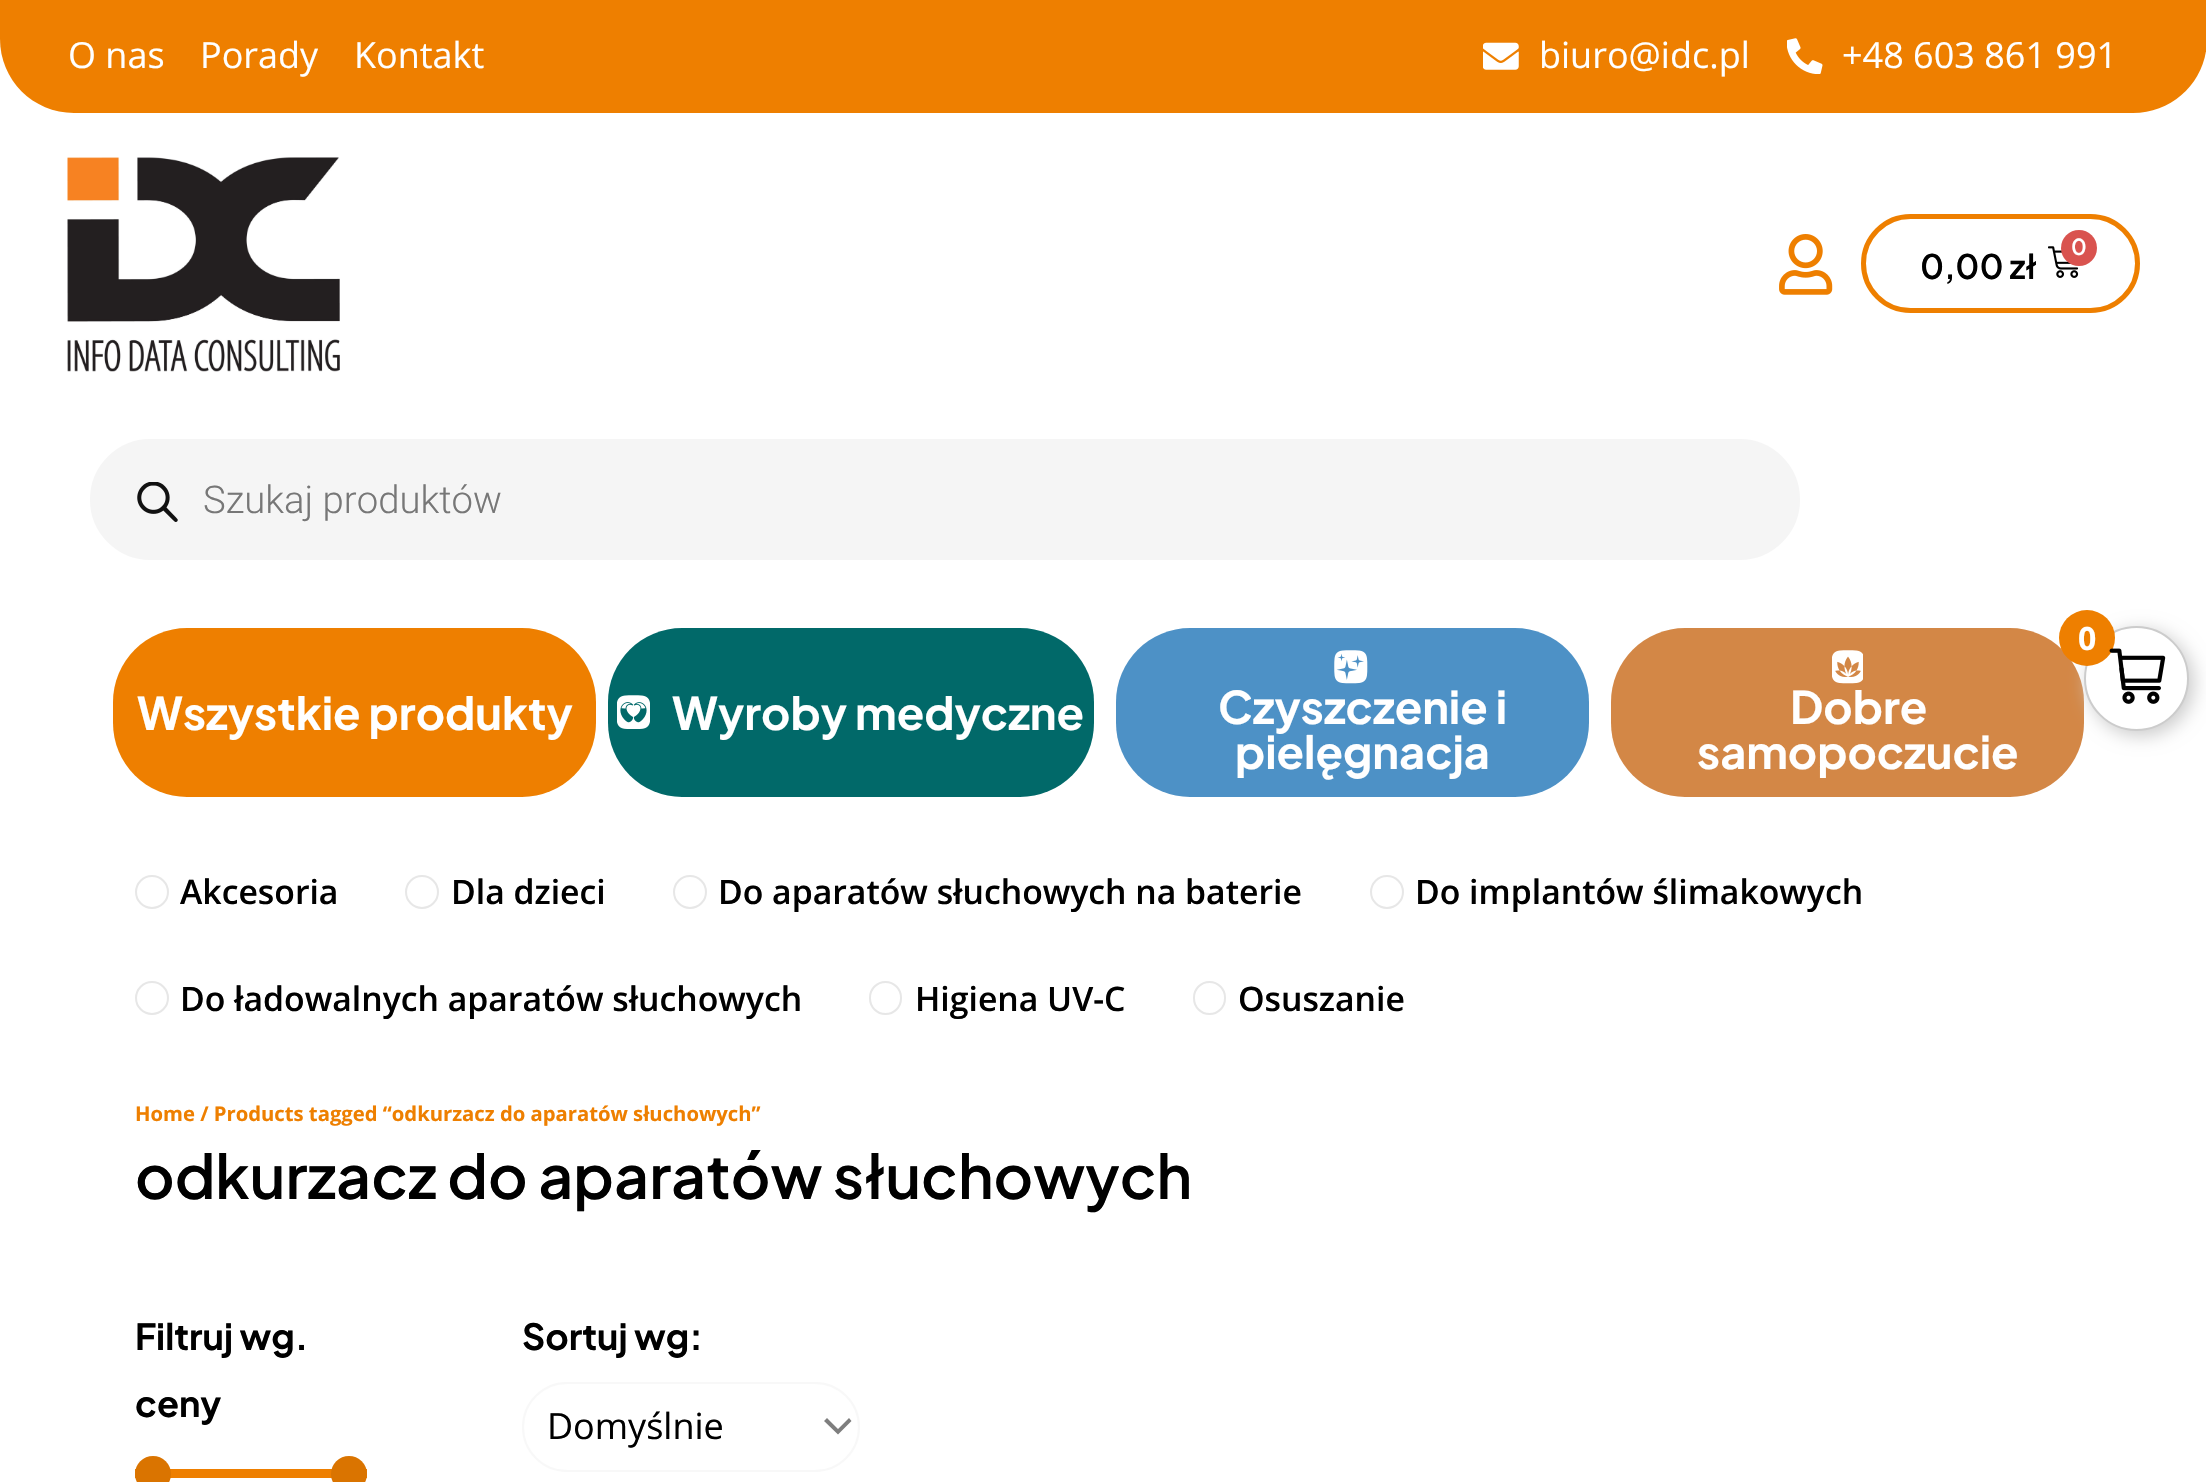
#include "include/core/SkBlurTypes.h"
#include "include/core/SkCanvas.h"
#include "include/core/SkData.h"
#include "include/core/SkFont.h"
#include "include/core/SkFontMgr.h"
#include "include/core/SkImage.h"
#include "include/core/SkMaskFilter.h"
#include "include/core/SkPaint.h"
#include "include/core/SkPathBuilder.h"
#include "include/core/SkTextBlob.h"
#include "include/effects/SkDashPathEffect.h"
#include "include/effects/SkGradientShader.h"
#include "include/utils/SkParsePath.h"

extern sk_sp<SkFontMgr> fontMgr;

void draw(SkCanvas* canvas) {
    SkPaint p;
    p.setAntiAlias(true);
    auto font = [&](const char* family, int weight, float size, bool italic = false) {
        SkFontStyle style(weight, SkFontStyle::kNormal_Width,
            italic ? SkFontStyle::kItalic_Slant : SkFontStyle::kUpright_Slant);
        SkFont result(fontMgr->matchFamilyStyle(family, style), size);
        result.setSubpixel(true);
        return result;
    };
    auto drawPhoto = [&](const char* path, float l, float t, float r, float b) {
        auto image = SkImages::DeferredFromEncodedData(SkData::MakeFromFileName(path));
        canvas->drawImageRect(image, SkRect::MakeLTRB(l, t, r, b), SkSamplingOptions());
    };
    canvas->clear(0xFFFFFFFF);
    p.setColor(0xFFEE7F00);
    canvas->drawPath(SkPathBuilder().moveTo(0, 0).lineTo(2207, 0).lineTo(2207, 39).cubicTo(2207, 80, 2174, 113, 2133, 113).lineTo(74, 113).cubicTo(33, 113, 0, 80, 0, 39).close().detach(), p);
    auto font1 = font("Open Sans", 400, 36);
    p.setColor(0xFFFFFFFF);
    {
        const struct { const char* s; float x, y; } items[] = {
            {"O nas", 68, 68},
            {"Porady", 200, 68},
            {"Kontakt", 354, 68},
        };
        for (auto [s, x, y] : items) {
            canvas->drawString(s, x, y, font1, p);
        }
    }
    drawPhoto("media/1.png", 1483, 42, 1519, 70);
    canvas->drawString("biuro@idc.pl", 1539, 68, font1, p);
    drawPhoto("media/2.png", 1787, 38, 1823, 74);
    canvas->drawString("+48 603 861 991", 1842, 68, font1, p);
    drawPhoto("media/3.png", 67, 157, 340, 372);
    drawPhoto("media/4.png", 1779, 234, 1833, 295);
    p.setStyle(SkPaint::kStroke_Style);
    p.setStrokeWidth(5);
    p.setColor(0xFFEE7F00);
    canvas->drawRoundRect(SkRect::MakeLTRB(1863.5f, 216.5f, 2137.5f, 310.5f), 47, 47, p);
    drawPhoto("media/5.png", 2048, 246, 2079, 278);
    p.setStyle(SkPaint::kFill_Style);
    p.setColor(0xFFD9534F);
    canvas->drawCircle(2079, 248, 18, p);
    auto font2 = font("Plus Jakarta Sans", 600, 22);
    p.setColor(0xFFFFFFFF);
    canvas->drawString("0", 2071, 255, font2, p);
    auto font3 = font("Plus Jakarta Sans", 600, 33.75f);
    p.setColor(0xFF000000);
    canvas->drawString("0,00 zł", 1920, 279, font3, p);
    p.setColor(0xFFF5F5F5);
    canvas->drawRoundRect(SkRect::MakeLTRB(92.5f, 441.5f, 1797.5f, 557.5f), 58, 58, p);
    p.setStyle(SkPaint::kStroke_Style);
    canvas->drawRoundRect(SkRect::MakeLTRB(92.5f, 441.5f, 1797.5f, 557.5f), 58, 58, p);
    drawPhoto("media/6.png", 137, 482, 178, 522);
    auto font4 = font("Roboto", 300, 38.25f);
    p.setStyle(SkPaint::kFill_Style);
    p.setColor(0xFF777777);
    canvas->drawString("Szukaj produktów", 203, 513, font4, p);
    p.setColor(0xFFEE7F00);
    canvas->drawRoundRect(SkRect::MakeLTRB(113, 628, 596, 797), 74, 74, p);
    auto font5 = font("Plus Jakarta Sans", 700, 45);
    p.setColor(0xFFFFFFFF);
    canvas->drawString("Wszystkie produkty", 137, 730, font5, p);
    p.setColor(0xFF016969);
    canvas->drawRoundRect(SkRect::MakeLTRB(608, 628, 1094, 797), 74, 74, p);
    drawPhoto("media/7.png", 617, 695, 650, 729);
    p.setColor(0xFFFFFFFF);
    canvas->drawString("Wyroby medyczne", 672, 730, font5, p);
    p.setColor(0xFF4D91C6);
    canvas->drawRoundRect(SkRect::MakeLTRB(1116, 628, 1589, 797), 74, 74, p);
    drawPhoto("media/8.png", 1334, 650, 1368, 684);
    p.setColor(0xFFFFFFFF);
    canvas->drawString("Czyszczenie i", 1218, 724, font5, p);
    canvas->drawString("pielęgnacja", 1235, 769, font5, p);
    p.setColor(0xFFD38746);
    canvas->drawRoundRect(SkRect::MakeLTRB(1611, 628, 2084, 797), 74, 74, p);
    drawPhoto("media/9.png", 1832, 650, 1863, 684);
    p.setColor(0xFFFFFFFF);
    canvas->drawString("Dobre", 1790, 724, font5, p);
    canvas->drawString("samopoczucie", 1697, 769, font5, p);
    p.setStyle(SkPaint::kStroke_Style);
    p.setStrokeWidth(2);
    p.setColor(0xFFE7E7E7);
    canvas->drawCircle(152, 892, 16, p);
    auto font6 = font("Open Sans", 600, 33.75f);
    p.setStyle(SkPaint::kFill_Style);
    p.setColor(0xFF000000);
    canvas->drawString("Akcesoria", 180, 904, font6, p);
    p.setStyle(SkPaint::kStroke_Style);
    p.setColor(0xFFE7E7E7);
    canvas->drawCircle(422, 892, 16, p);
    p.setStyle(SkPaint::kFill_Style);
    p.setColor(0xFF000000);
    canvas->drawString("Dla dzieci", 451, 904, font6, p);
    p.setStyle(SkPaint::kStroke_Style);
    p.setColor(0xFFE7E7E7);
    canvas->drawCircle(690, 892, 16, p);
    p.setStyle(SkPaint::kFill_Style);
    p.setColor(0xFF000000);
    canvas->drawString("Do aparatów słuchowych na baterie", 718, 904, font6, p);
    p.setStyle(SkPaint::kStroke_Style);
    p.setColor(0xFFE7E7E7);
    canvas->drawCircle(1387, 892, 16, p);
    p.setStyle(SkPaint::kFill_Style);
    p.setColor(0xFF000000);
    canvas->drawString("Do implantów ślimakowych", 1415, 904, font6, p);
    p.setStyle(SkPaint::kStroke_Style);
    p.setColor(0xFFE7E7E7);
    canvas->drawCircle(152, 998, 16, p);
    p.setStyle(SkPaint::kFill_Style);
    p.setColor(0xFF000000);
    canvas->drawString("Do ładowalnych aparatów słuchowych", 180, 1011, font6, p);
    p.setStyle(SkPaint::kStroke_Style);
    p.setColor(0xFFE7E7E7);
    canvas->drawRoundRect(SkRect::MakeLTRB(870, 982, 901, 1014), 15.5f, 15.5f, p);
    p.setStyle(SkPaint::kFill_Style);
    p.setColor(0xFF000000);
    canvas->drawString("Higiena UV-C", 915, 1011, font6, p);
    p.setStyle(SkPaint::kStroke_Style);
    p.setColor(0xFFE7E7E7);
    canvas->drawRoundRect(SkRect::MakeLTRB(1194, 982, 1225, 1014), 15.5f, 15.5f, p);
    p.setStyle(SkPaint::kFill_Style);
    p.setColor(0xFF000000);
    canvas->drawString("Osuszanie", 1238, 1011, font6, p);
    auto font7 = font("Open Sans", 700, 20.25f);
    p.setColor(0xFFEE7F00);
    canvas->drawString("Home / Products tagged “odkurzacz do aparatów słuchowych”", 135, 1121, font7, p);
    auto font8 = font("Plus Jakarta Sans", 600, 60.75f);
    p.setColor(0xFF000000);
    canvas->drawString("odkurzacz do aparatów słuchowych", 135, 1199, font8, p);
    auto font9 = font("Plus Jakarta Sans", 700, 36);
    canvas->drawString("Filtruj wg.", 135, 1350, font9, p);
    canvas->drawString("ceny", 135, 1417, font9, p);
    p.setColor(0xFFEE7F00);
    canvas->drawRect(SkRect::MakeLTRB(135, 1469, 367, 1478), p);
    p.setColor(0xFFDA7400);
    canvas->drawCircle(153, 1474, 18, p);
    canvas->drawCircle(349, 1474, 18, p);
    p.setColor(0xFF000000);
    canvas->drawString("Sortuj wg:", 522, 1350, font9, p);
    p.setColor(0xFF7E7E7E);
    canvas->drawPath(SkPathBuilder().moveTo(824, 1421).lineTo(838, 1434.5f).lineTo(851.5f, 1421).lineTo(849, 1418).lineTo(838, 1429).lineTo(827, 1418).close().detach(), p);
    p.setStyle(SkPaint::kStroke_Style);
    p.setColor(0xFFF8F8F8);
    canvas->drawRoundRect(SkRect::MakeLTRB(523, 1383, 859, 1471), 44, 44, p);
    p.setStyle(SkPaint::kFill_Style);
    p.setColor(0xFF000000);
    canvas->drawString("Domyślnie", 547, 1439, font1, p);
    p.setColor(0xFFCCCCCC);
    p.setMaskFilter(SkMaskFilter::MakeBlur(kNormal_SkBlurStyle, 9));
    canvas->drawRoundRect(SkRect::MakeLTRB(2088, 630, 2194, 736), 53, 53, p);
    p.setMaskFilter(nullptr);
    p.setColor(0xFFFFFFFF);
    canvas->drawCircle(2136.5f, 678.5f, 51.5f, p);
    p.setStyle(SkPaint::kStroke_Style);
    p.setColor(0xFFCCCCCC);
    canvas->drawCircle(2136.5f, 678.5f, 51.5f, p);
    p.setStyle(SkPaint::kFill_Style);
    p.setColor(0xFFEE7F00);
    canvas->drawCircle(2087, 638, 28, p);
    auto font10 = font("Open Sans", 700, 32);
    p.setColor(0xFFFFFFFF);
    canvas->drawString("0", 2078, 650, font10, p);
    drawPhoto("media/10.png", 2109, 648, 2166, 704);
}
